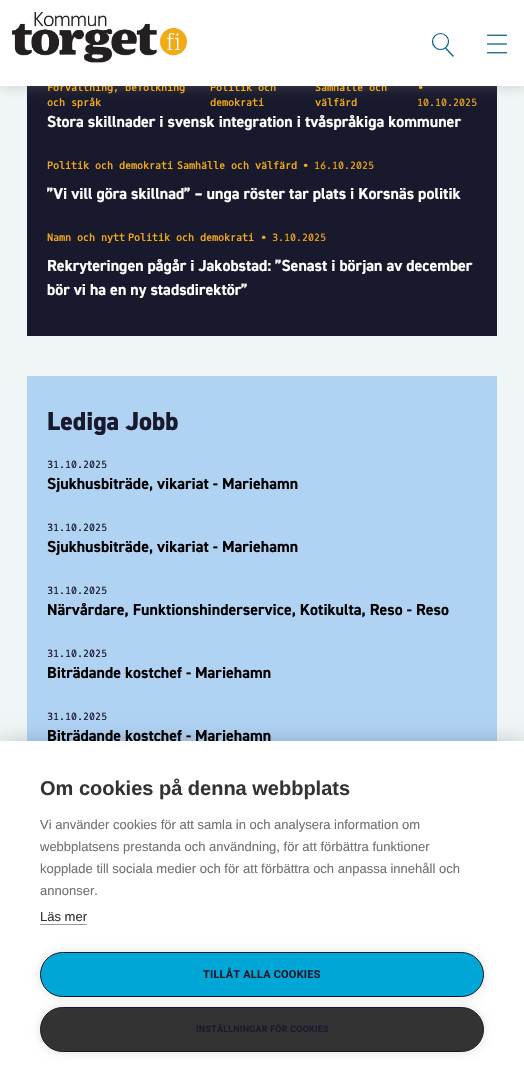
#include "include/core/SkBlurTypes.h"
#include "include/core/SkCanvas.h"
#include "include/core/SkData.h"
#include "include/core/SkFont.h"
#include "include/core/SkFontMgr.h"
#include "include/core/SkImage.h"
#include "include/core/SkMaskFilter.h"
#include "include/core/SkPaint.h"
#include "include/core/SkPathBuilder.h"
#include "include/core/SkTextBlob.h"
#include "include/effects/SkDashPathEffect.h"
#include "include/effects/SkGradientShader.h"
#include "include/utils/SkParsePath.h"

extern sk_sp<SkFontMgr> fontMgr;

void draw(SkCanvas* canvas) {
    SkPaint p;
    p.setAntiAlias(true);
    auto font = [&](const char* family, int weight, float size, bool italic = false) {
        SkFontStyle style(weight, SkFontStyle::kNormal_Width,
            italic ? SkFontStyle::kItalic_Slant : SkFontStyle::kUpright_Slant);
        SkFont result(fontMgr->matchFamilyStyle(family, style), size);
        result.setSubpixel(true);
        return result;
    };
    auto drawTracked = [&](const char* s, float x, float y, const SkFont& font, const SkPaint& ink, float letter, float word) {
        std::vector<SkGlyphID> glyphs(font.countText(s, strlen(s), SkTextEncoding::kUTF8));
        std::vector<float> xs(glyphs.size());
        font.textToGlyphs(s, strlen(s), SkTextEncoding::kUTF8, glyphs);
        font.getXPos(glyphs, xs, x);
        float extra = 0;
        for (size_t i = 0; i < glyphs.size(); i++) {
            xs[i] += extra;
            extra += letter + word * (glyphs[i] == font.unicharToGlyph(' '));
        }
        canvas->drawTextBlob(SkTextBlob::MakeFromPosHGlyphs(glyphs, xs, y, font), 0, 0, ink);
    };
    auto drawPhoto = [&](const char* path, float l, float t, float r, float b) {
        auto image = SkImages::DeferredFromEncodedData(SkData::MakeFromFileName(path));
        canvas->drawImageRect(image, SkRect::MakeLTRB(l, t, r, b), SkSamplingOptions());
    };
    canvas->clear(0xFFF0F5F5);
    p.setColor(0xFF19192D);
    canvas->drawRect(SkRect::MakeLTRB(27, 86, 497, 336), p);
    p.setColor(0x408C8C8C);
    p.setMaskFilter(SkMaskFilter::MakeBlur(kNormal_SkBlurStyle, 5));
    canvas->drawRect(SkRect::MakeLTRB(-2, -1, 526, 89), p);
    p.setMaskFilter(nullptr);
    auto font1 = font("Oxygen Mono", 700, 10);
    p.setColor(0xFFF1AB15);
    {
        const struct { const char* s; float x, y; } items[] = {
            {"Förvaltning, befolkning", 47, 91},
            {"Politik och", 210, 91},
            {"Samhälle och", 315, 91},
        };
        for (auto [s, x, y] : items) {
            canvas->drawString(s, x, y, font1, p);
        }
    }
    auto font2 = font("Oxygen Mono", 400, 10);
    canvas->drawString("•", 417, 91, font2, p);
    p.setColor(0xFFFFFFFF);
    canvas->drawRect(SkRect::MakeLTRB(0, 0, 524, 86), p);
    drawPhoto("media/1.png", 12, 12, 187, 63);
    p.setStyle(SkPaint::kStroke_Style);
    p.setStrokeWidth(1.2f);
    p.setColor(0xFF005C83);
    canvas->drawCircle(440.5f, 41.5f, 8, p);
    canvas->drawPath(SkPathBuilder().moveTo(445.5f, 48).lineTo(453.5f, 56.5f).detach(), p);
    drawPhoto("media/2.png", 487, 34, 507, 54);
    p.setStyle(SkPaint::kFill_Style);
    p.setColor(0xFFF1AB15);
    {
        const struct { const char* s; float x, y; } items[] = {
            {"och språk", 47, 106},
            {"demokrati", 210, 106},
            {"välfärd", 315, 106},
        };
        for (auto [s, x, y] : items) {
            canvas->drawString(s, x, y, font1, p);
        }
    }
    canvas->drawString("10.10.2025", 417, 106, font2, p);
    auto font3 = font("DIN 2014", 700, 16);
    p.setColor(0xFFFFFFFF);
    canvas->drawString("Stora skillnader i svensk integration i tvåspråkiga kommuner", 47, 127, font3, p);
    p.setColor(0xFFF1AB15);
    canvas->drawString("Politik och demokrati", 47, 169, font1, p);
    canvas->drawString("Samhälle och välfärd", 177, 169, font1, p);
    canvas->drawString("• 16.10.2025", 302, 169, font2, p);
    p.setColor(0xFFFFFFFF);
    canvas->drawString("”Vi vill göra skillnad” – unga röster tar plats i Korsnäs politik", 47, 199, font3, p);
    p.setColor(0xFFF1AB15);
    canvas->drawString("Namn och nytt", 47, 241, font1, p);
    canvas->drawString("Politik och demokrati", 128, 241, font1, p);
    canvas->drawString("• 3.10.2025", 260, 241, font2, p);
    p.setColor(0xFFFFFFFF);
    canvas->drawString("Rekryteringen pågår i Jakobstad: ”Senast i början av december", 47, 271, font3, p);
    canvas->drawString("bör vi ha en ny stadsdirektör”", 47, 295, font3, p);
    p.setColor(0xFFB0D3F4);
    canvas->drawRect(SkRect::MakeLTRB(27, 376, 497, 741), p);
    auto font4 = font("DIN 2014", 800, 26);
    p.setColor(0xFF19192D);
    canvas->drawString("Lediga Jobb", 47, 430, font4, p);
    canvas->drawString("31.10.2025", 47, 468, font2, p);
    p.setColor(0xFF000000);
    canvas->drawString("Sjukhusbiträde, vikariat - Mariehamn", 47, 489, font3, p);
    p.setColor(0xFF19192D);
    canvas->drawString("31.10.2025", 47, 531, font2, p);
    p.setColor(0xFF000000);
    canvas->drawString("Sjukhusbiträde, vikariat - Mariehamn", 47, 552, font3, p);
    p.setColor(0xFF19192D);
    canvas->drawString("31.10.2025", 47, 594, font2, p);
    p.setColor(0xFF000000);
    canvas->drawString("Närvårdare, Funktionshinderservice, Kotikulta, Reso - Reso", 47, 615, font3, p);
    p.setColor(0xFF19192D);
    canvas->drawString("31.10.2025", 47, 657, font2, p);
    p.setColor(0xFF000000);
    canvas->drawString("Biträdande kostchef - Mariehamn", 47, 678, font3, p);
    p.setColor(0xFF19192D);
    canvas->drawString("31.10.2025", 47, 720, font2, p);
    p.setColor(0xFF000000);
    canvas->drawString("Biträdande kostchef - Mariehamn", 47, 741, font3, p);
    p.setColor(0x33000000);
    p.setMaskFilter(SkMaskFilter::MakeBlur(kNormal_SkBlurStyle, 10));
    canvas->drawRect(SkRect::MakeLTRB(0, 741, 524, 1077), p);
    p.setMaskFilter(nullptr);
    p.setColor(0xFFFFFFFF);
    canvas->drawRect(SkRect::MakeLTRB(0, 741, 524, 1077), p);
    auto font5 = font("Liberation Sans", 700, 20);
    p.setColor(0xFF333333);
    canvas->drawString("Om cookies på denna webbplats", 40, 795, font5, p);
    auto font6 = font("Liberation Sans", 400, 13);
    p.setColor(0xFF707070);
    {
        const struct { const char* s; float x, y; } items[] = {
            {"Vi använder cookies för att samla in och analysera information om", 40, 829},
            {"webbplatsens prestanda och användning, för att förbättra funktioner", 40, 851},
            {"kopplade till sociala medier och för att förbättra och anpassa innehåll och", 40, 873},
            {"annonser.", 40, 895},
        };
        for (auto [s, x, y] : items) {
            canvas->drawString(s, x, y, font6, p);
        }
    }
    p.setColor(0xFF333333);
    canvas->drawString("Läs mer", 40, 921, font6, p);
    p.setColor(0xFF999999);
    canvas->drawRect(SkRect::MakeLTRB(40, 924, 87, 925), p);
    p.setColor(0x1F000000);
    p.setMaskFilter(SkMaskFilter::MakeBlur(kNormal_SkBlurStyle, 5));
    canvas->drawRoundRect(SkRect::MakeLTRB(40, 952, 484, 997), 22.5f, 22.5f, p);
    p.setMaskFilter(nullptr);
    p.setColor(0xFF00A6D6);
    canvas->drawRoundRect(SkRect::MakeLTRB(40.5f, 952.5f, 483.5f, 996.5f), 22, 22, p);
    p.setStyle(SkPaint::kStroke_Style);
    p.setStrokeWidth(1);
    p.setColor(0xFF19192D);
    canvas->drawRoundRect(SkRect::MakeLTRB(40.5f, 952.5f, 483.5f, 996.5f), 22, 22, p);
    auto font7 = font("Roboto", 700, 11);
    p.setStyle(SkPaint::kFill_Style);
    drawTracked("TILLÅT ALLA COOKIES", 203, 978, font7, p, 0.2f, 0);
    p.setColor(0x1F000000);
    p.setMaskFilter(SkMaskFilter::MakeBlur(kNormal_SkBlurStyle, 5));
    canvas->drawRoundRect(SkRect::MakeLTRB(40, 1007, 484, 1052), 22.5f, 22.5f, p);
    p.setMaskFilter(nullptr);
    p.setColor(0xFF333333);
    canvas->drawRoundRect(SkRect::MakeLTRB(40.5f, 1007.5f, 483.5f, 1051.5f), 22, 22, p);
    p.setStyle(SkPaint::kStroke_Style);
    p.setColor(0xFF19192D);
    canvas->drawRoundRect(SkRect::MakeLTRB(40.5f, 1007.5f, 483.5f, 1051.5f), 22, 22, p);
    auto font8 = font("Roboto", 700, 9);
    p.setStyle(SkPaint::kFill_Style);
    drawTracked("INSTÄLLNINGAR FÖR COOKIES", 196, 1032, font8, p, 0.2f, 0);
}
